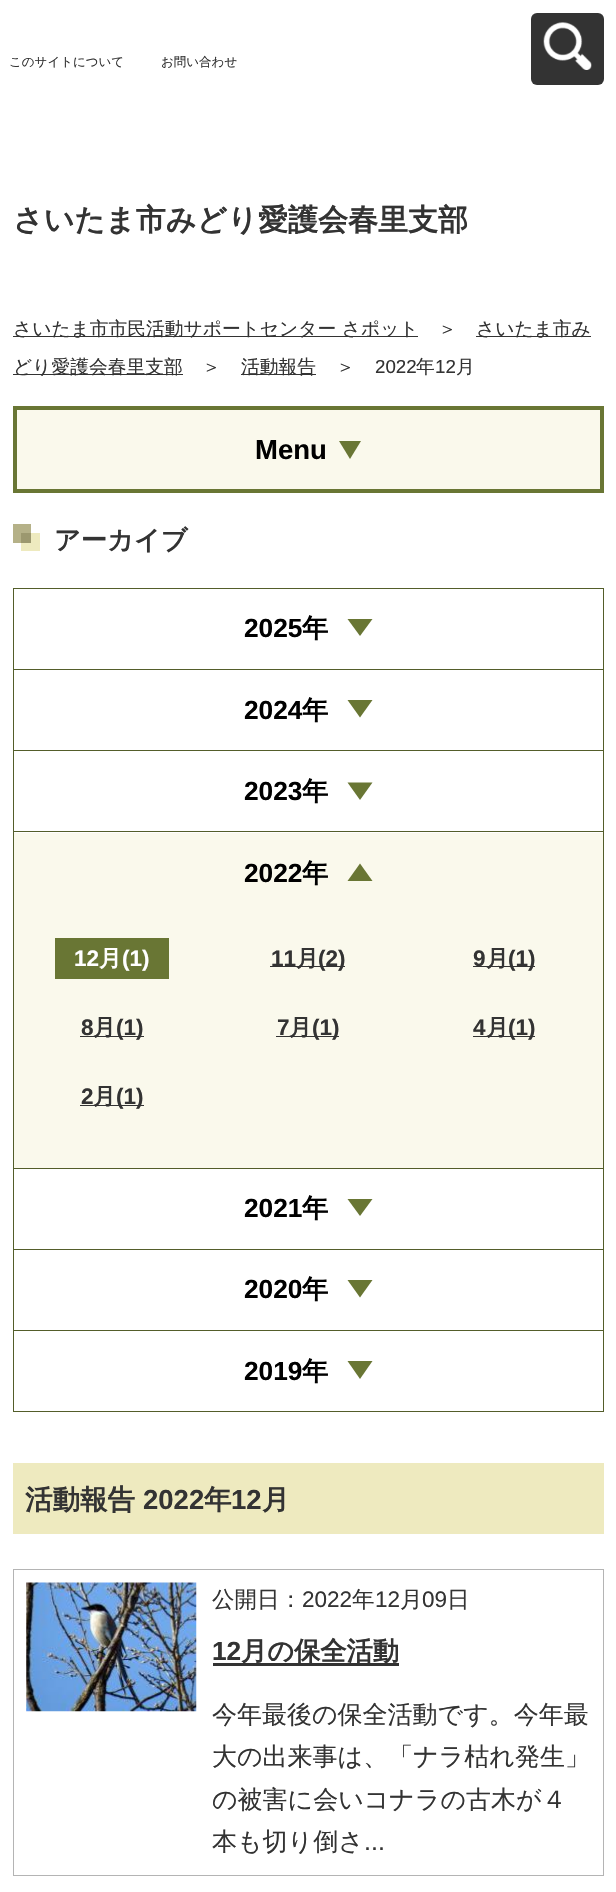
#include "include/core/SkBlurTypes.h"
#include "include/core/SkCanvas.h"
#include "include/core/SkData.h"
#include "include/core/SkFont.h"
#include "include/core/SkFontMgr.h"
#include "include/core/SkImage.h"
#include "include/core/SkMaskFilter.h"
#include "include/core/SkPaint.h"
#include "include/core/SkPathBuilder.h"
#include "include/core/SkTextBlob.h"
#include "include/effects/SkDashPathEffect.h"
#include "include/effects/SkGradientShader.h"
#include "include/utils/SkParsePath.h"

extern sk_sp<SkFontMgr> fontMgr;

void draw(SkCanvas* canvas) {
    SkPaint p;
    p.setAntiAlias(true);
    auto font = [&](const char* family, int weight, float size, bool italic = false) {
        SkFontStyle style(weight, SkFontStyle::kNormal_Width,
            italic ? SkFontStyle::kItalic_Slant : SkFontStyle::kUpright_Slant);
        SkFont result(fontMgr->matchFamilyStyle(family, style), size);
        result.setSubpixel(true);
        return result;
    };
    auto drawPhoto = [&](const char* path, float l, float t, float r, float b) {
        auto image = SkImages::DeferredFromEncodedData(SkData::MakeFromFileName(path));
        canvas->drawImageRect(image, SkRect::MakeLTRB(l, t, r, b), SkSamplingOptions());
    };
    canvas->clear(0xFFFFFFFF);
    auto font1 = font("WenQuanYi Zen Hei", 500, 12.5f);
    p.setColor(0xFF333333);
    canvas->drawString("このサイトについて", 9, 66, font1, p);
    canvas->drawString("お問い合わせ", 161, 66, font1, p);
    canvas->drawRoundRect(SkRect::MakeLTRB(531, 13, 604, 85), 6, 6, p);
    drawPhoto("media/1.png", 543, 22, 592, 70);
    auto font2 = font("WenQuanYi Zen Hei", 700, 30);
    canvas->drawString("さいたま市みどり愛護会春里支部", 13, 230, font2, p);
    canvas->drawRect(SkRect::MakeLTRB(13, 336, 418, 337), p);
    auto font3 = font("WenQuanYi Zen Hei", 500, 18.75f);
    canvas->drawString("さいたま市市民活動サポートセンター さポット", 13, 335, font3, p);
    canvas->drawString("＞", 438, 335, font3, p);
    canvas->drawRect(SkRect::MakeLTRB(476, 336, 591, 337), p);
    canvas->drawString("さいたま市み", 476, 335, font3, p);
    canvas->drawRect(SkRect::MakeLTRB(13, 374, 183, 375), p);
    canvas->drawString("どり愛護会春里支部", 13, 373, font3, p);
    canvas->drawString("＞", 202, 373, font3, p);
    canvas->drawRect(SkRect::MakeLTRB(241, 374, 316, 375), p);
    canvas->drawString("活動報告", 241, 373, font3, p);
    canvas->drawString("＞", 336, 373, font3, p);
    auto font4 = font("Liberation Sans", 400, 18.75f);
    canvas->drawString("2022", 375, 373, font4, p);
    canvas->drawString("年", 416, 373, font3, p);
    canvas->drawString("12", 435, 373, font4, p);
    canvas->drawString("月", 456, 373, font3, p);
    p.setColor(0xFFFAF9EC);
    canvas->drawRect(SkRect::MakeLTRB(15, 408, 602, 491), p);
    p.setStyle(SkPaint::kStroke_Style);
    p.setStrokeWidth(4);
    p.setColor(0xFF697634);
    canvas->drawRect(SkRect::MakeLTRB(15, 408, 602, 491), p);
    auto font5 = font("Liberation Sans", 700, 27.5f);
    p.setStyle(SkPaint::kFill_Style);
    p.setColor(0xFF000000);
    canvas->drawString("Menu", 255, 459, font5, p);
    p.setColor(0xFF697634);
    canvas->drawPath(SkPathBuilder().moveTo(339, 441).lineTo(361, 441).lineTo(350, 459).close().detach(), p);
    {
        const struct { float l, t, r, b; SkColor color; } items[] = {
            {13, 524, 31, 543, 0xFFB5B188},
            {21, 533, 40, 551, 0xFFEEEABF},
            {21, 533, 31, 543, 0xFF9C986F},
        };
        for (auto [l, t, r, b, color] : items) {
            p.setColor(color);
            canvas->drawRect(SkRect::MakeLTRB(l, t, r, b), p);
        }
    }
    auto font6 = font("WenQuanYi Zen Hei", 700, 26.25f);
    p.setColor(0xFF333333);
    canvas->drawString("アーカイブ", 54, 549, font6, p);
    {
        const struct { float l, t, r, b; SkColor color; } items[] = {
            {13, 1411, 604, 1412, 0xFF535D2A},
            {13, 588, 604, 589, 0xFF535D2A},
            {603, 588, 604, 669, 0xFF535D2A},
            {13, 588, 14, 669, 0xFF535D2A},
        };
        for (auto [l, t, r, b, color] : items) {
            p.setColor(color);
            canvas->drawRect(SkRect::MakeLTRB(l, t, r, b), p);
        }
    }
    auto font7 = font("Liberation Sans", 700, 26.25f);
    p.setColor(0xFF000000);
    canvas->drawString("2025", 244, 637, font7, p);
    canvas->drawString("年", 302, 637, font6, p);
    p.setColor(0xFF697634);
    canvas->drawPath(SkPathBuilder().moveTo(347.5f, 619).lineTo(372.5f, 619).lineTo(360, 636).close().detach(), p);
    {
        const struct { float l, t, r, b; SkColor color; } items[] = {
            {13, 669, 604, 670, 0xFF535D2A},
            {603, 669, 604, 750, 0xFF535D2A},
            {13, 669, 14, 750, 0xFF535D2A},
        };
        for (auto [l, t, r, b, color] : items) {
            p.setColor(color);
            canvas->drawRect(SkRect::MakeLTRB(l, t, r, b), p);
        }
    }
    p.setColor(0xFF000000);
    canvas->drawString("2024", 244, 719, font7, p);
    canvas->drawString("年", 302, 719, font6, p);
    p.setColor(0xFF697634);
    canvas->drawPath(SkPathBuilder().moveTo(347.5f, 700).lineTo(372.5f, 700).lineTo(360, 717.5f).close().detach(), p);
    {
        const struct { float l, t, r, b; SkColor color; } items[] = {
            {13, 750, 604, 751, 0xFF535D2A},
            {603, 750, 604, 831, 0xFF535D2A},
            {13, 750, 14, 831, 0xFF535D2A},
        };
        for (auto [l, t, r, b, color] : items) {
            p.setColor(color);
            canvas->drawRect(SkRect::MakeLTRB(l, t, r, b), p);
        }
    }
    p.setColor(0xFF000000);
    canvas->drawString("2023", 244, 800, font7, p);
    canvas->drawString("年", 302, 800, font6, p);
    p.setColor(0xFF697634);
    canvas->drawPath(SkPathBuilder().moveTo(347.5f, 782.5f).lineTo(372.5f, 782.5f).lineTo(360, 800).close().detach(), p);
    {
        const struct { float l, t, r, b; SkColor color; } items[] = {
            {14, 833, 603, 1168, 0xFFFAF9EC},
            {13, 831, 604, 832, 0xFF535D2A},
            {603, 831, 604, 1168, 0xFF535D2A},
            {13, 831, 14, 1168, 0xFF535D2A},
        };
        for (auto [l, t, r, b, color] : items) {
            p.setColor(color);
            canvas->drawRect(SkRect::MakeLTRB(l, t, r, b), p);
        }
    }
    p.setColor(0xFF000000);
    canvas->drawString("2022", 244, 882, font7, p);
    canvas->drawString("年", 302, 882, font6, p);
    p.setColor(0xFF697634);
    canvas->drawPath(SkPathBuilder().moveTo(372.5f, 881).lineTo(347.5f, 881).lineTo(360, 863.5f).close().detach(), p);
    canvas->drawRect(SkRect::MakeLTRB(55, 938, 169, 979), p);
    auto font8 = font("Liberation Sans", 700, 22.5f);
    p.setColor(0xFFFFFFFF);
    canvas->drawString("12", 74, 966, font8, p);
    auto font9 = font("WenQuanYi Zen Hei", 700, 22.5f);
    canvas->drawString("月", 99, 966, font9, p);
    canvas->drawString("(1)", 122, 966, font8, p);
    p.setColor(0xFF333333);
    canvas->drawString("11", 271, 966, font8, p);
    canvas->drawRect(SkRect::MakeLTRB(270, 966, 345, 967), p);
    canvas->drawString("月", 296, 966, font9, p);
    canvas->drawString("(2)", 318, 966, font8, p);
    canvas->drawRect(SkRect::MakeLTRB(473, 966, 535, 967), p);
    canvas->drawString("9", 473, 966, font8, p);
    canvas->drawString("月", 486, 966, font9, p);
    canvas->drawString("(1)", 508, 966, font8, p);
    canvas->drawString("8", 81, 1035, font8, p);
    canvas->drawRect(SkRect::MakeLTRB(80, 1036, 144, 1037), p);
    canvas->drawString("月", 93, 1035, font9, p);
    canvas->drawString("(1)", 116, 1035, font8, p);
    canvas->drawString("7", 277, 1035, font8, p);
    canvas->drawRect(SkRect::MakeLTRB(276, 1036, 339, 1037), p);
    canvas->drawString("月", 289, 1035, font9, p);
    canvas->drawString("(1)", 312, 1035, font8, p);
    canvas->drawString("4", 473, 1035, font8, p);
    canvas->drawRect(SkRect::MakeLTRB(473, 1036, 535, 1037), p);
    canvas->drawString("月", 486, 1035, font9, p);
    canvas->drawString("(1)", 508, 1035, font8, p);
    canvas->drawString("2", 81, 1104, font8, p);
    canvas->drawRect(SkRect::MakeLTRB(80, 1105, 144, 1106), p);
    canvas->drawString("月", 93, 1104, font9, p);
    canvas->drawString("(1)", 116, 1104, font8, p);
    {
        const struct { float l, t, r, b; SkColor color; } items[] = {
            {13, 1168, 604, 1169, 0xFF535D2A},
            {603, 1168, 604, 1249, 0xFF535D2A},
            {13, 1168, 14, 1249, 0xFF535D2A},
        };
        for (auto [l, t, r, b, color] : items) {
            p.setColor(color);
            canvas->drawRect(SkRect::MakeLTRB(l, t, r, b), p);
        }
    }
    p.setColor(0xFF000000);
    canvas->drawString("2021", 244, 1217, font7, p);
    canvas->drawString("年", 302, 1217, font6, p);
    p.setColor(0xFF697634);
    canvas->drawPath(SkPathBuilder().moveTo(347.5f, 1199).lineTo(372.5f, 1199).lineTo(360, 1216).close().detach(), p);
    {
        const struct { float l, t, r, b; SkColor color; } items[] = {
            {13, 1249, 604, 1250, 0xFF535D2A},
            {603, 1249, 604, 1330, 0xFF535D2A},
            {13, 1249, 14, 1330, 0xFF535D2A},
        };
        for (auto [l, t, r, b, color] : items) {
            p.setColor(color);
            canvas->drawRect(SkRect::MakeLTRB(l, t, r, b), p);
        }
    }
    p.setColor(0xFF000000);
    canvas->drawString("2020", 244, 1298, font7, p);
    canvas->drawString("年", 302, 1298, font6, p);
    p.setColor(0xFF697634);
    canvas->drawPath(SkPathBuilder().moveTo(347.5f, 1280).lineTo(372.5f, 1280).lineTo(360, 1297.5f).close().detach(), p);
    {
        const struct { float l, t, r, b; SkColor color; } items[] = {
            {13, 1330, 604, 1331, 0xFF535D2A},
            {603, 1330, 604, 1411, 0xFF535D2A},
            {13, 1330, 14, 1411, 0xFF535D2A},
        };
        for (auto [l, t, r, b, color] : items) {
            p.setColor(color);
            canvas->drawRect(SkRect::MakeLTRB(l, t, r, b), p);
        }
    }
    p.setColor(0xFF000000);
    canvas->drawString("2019", 244, 1380, font7, p);
    canvas->drawString("年", 302, 1380, font6, p);
    p.setColor(0xFF697634);
    canvas->drawPath(SkPathBuilder().moveTo(347.5f, 1361).lineTo(372.5f, 1361).lineTo(360, 1379).close().detach(), p);
    p.setColor(0xFFEEEABF);
    canvas->drawRect(SkRect::MakeLTRB(13, 1463, 604, 1534), p);
    auto font10 = font("WenQuanYi Zen Hei", 700, 27.5f);
    p.setColor(0xFF333333);
    canvas->drawString("活動報告", 25, 1509, font10, p);
    canvas->drawString("2022", 143, 1509, font5, p);
    canvas->drawString("年", 204, 1509, font10, p);
    canvas->drawString("12", 231, 1509, font5, p);
    canvas->drawString("月", 262, 1509, font10, p);
    p.setStyle(SkPaint::kStroke_Style);
    p.setStrokeWidth(1);
    p.setColor(0xFFB4B4B4);
    canvas->drawRect(SkRect::MakeLTRB(13.5f, 1569.5f, 603.5f, 1875.5f), p);
    drawPhoto("media/2.png", 26, 1582, 197, 1712);
    auto font11 = font("WenQuanYi Zen Hei", 500, 22.5f);
    p.setStyle(SkPaint::kFill_Style);
    p.setColor(0xFF333333);
    canvas->drawString("公開日：", 212, 1607, font11, p);
    auto font12 = font("Liberation Sans", 400, 22.5f);
    canvas->drawString("2022", 302, 1607, font12, p);
    canvas->drawString("年", 352, 1607, font11, p);
    canvas->drawString("12", 375, 1607, font12, p);
    canvas->drawString("月", 400, 1607, font11, p);
    canvas->drawString("09", 422, 1607, font12, p);
    canvas->drawString("日", 447, 1607, font11, p);
    canvas->drawString("12", 212, 1660, font7, p);
    canvas->drawRect(SkRect::MakeLTRB(213, 1663, 399, 1666), p);
    canvas->drawString("月の保全活動", 241, 1660, font6, p);
    auto font13 = font("WenQuanYi Zen Hei", 500, 25);
    {
        const struct { const char* s; float x, y; } items[] = {
            {"今年最後の保全活動です。今年最", 212, 1723},
            {"大の出来事は、「ナラ枯れ発生」", 212, 1765},
            {"の被害に会いコナラの古木が４", 212, 1808},
            {"本も切り倒さ", 212, 1850},
        };
        for (auto [s, x, y] : items) {
            canvas->drawString(s, x, y, font13, p);
        }
    }
    auto font14 = font("Liberation Sans", 400, 25);
    canvas->drawString("...", 364, 1850, font14, p);
}
